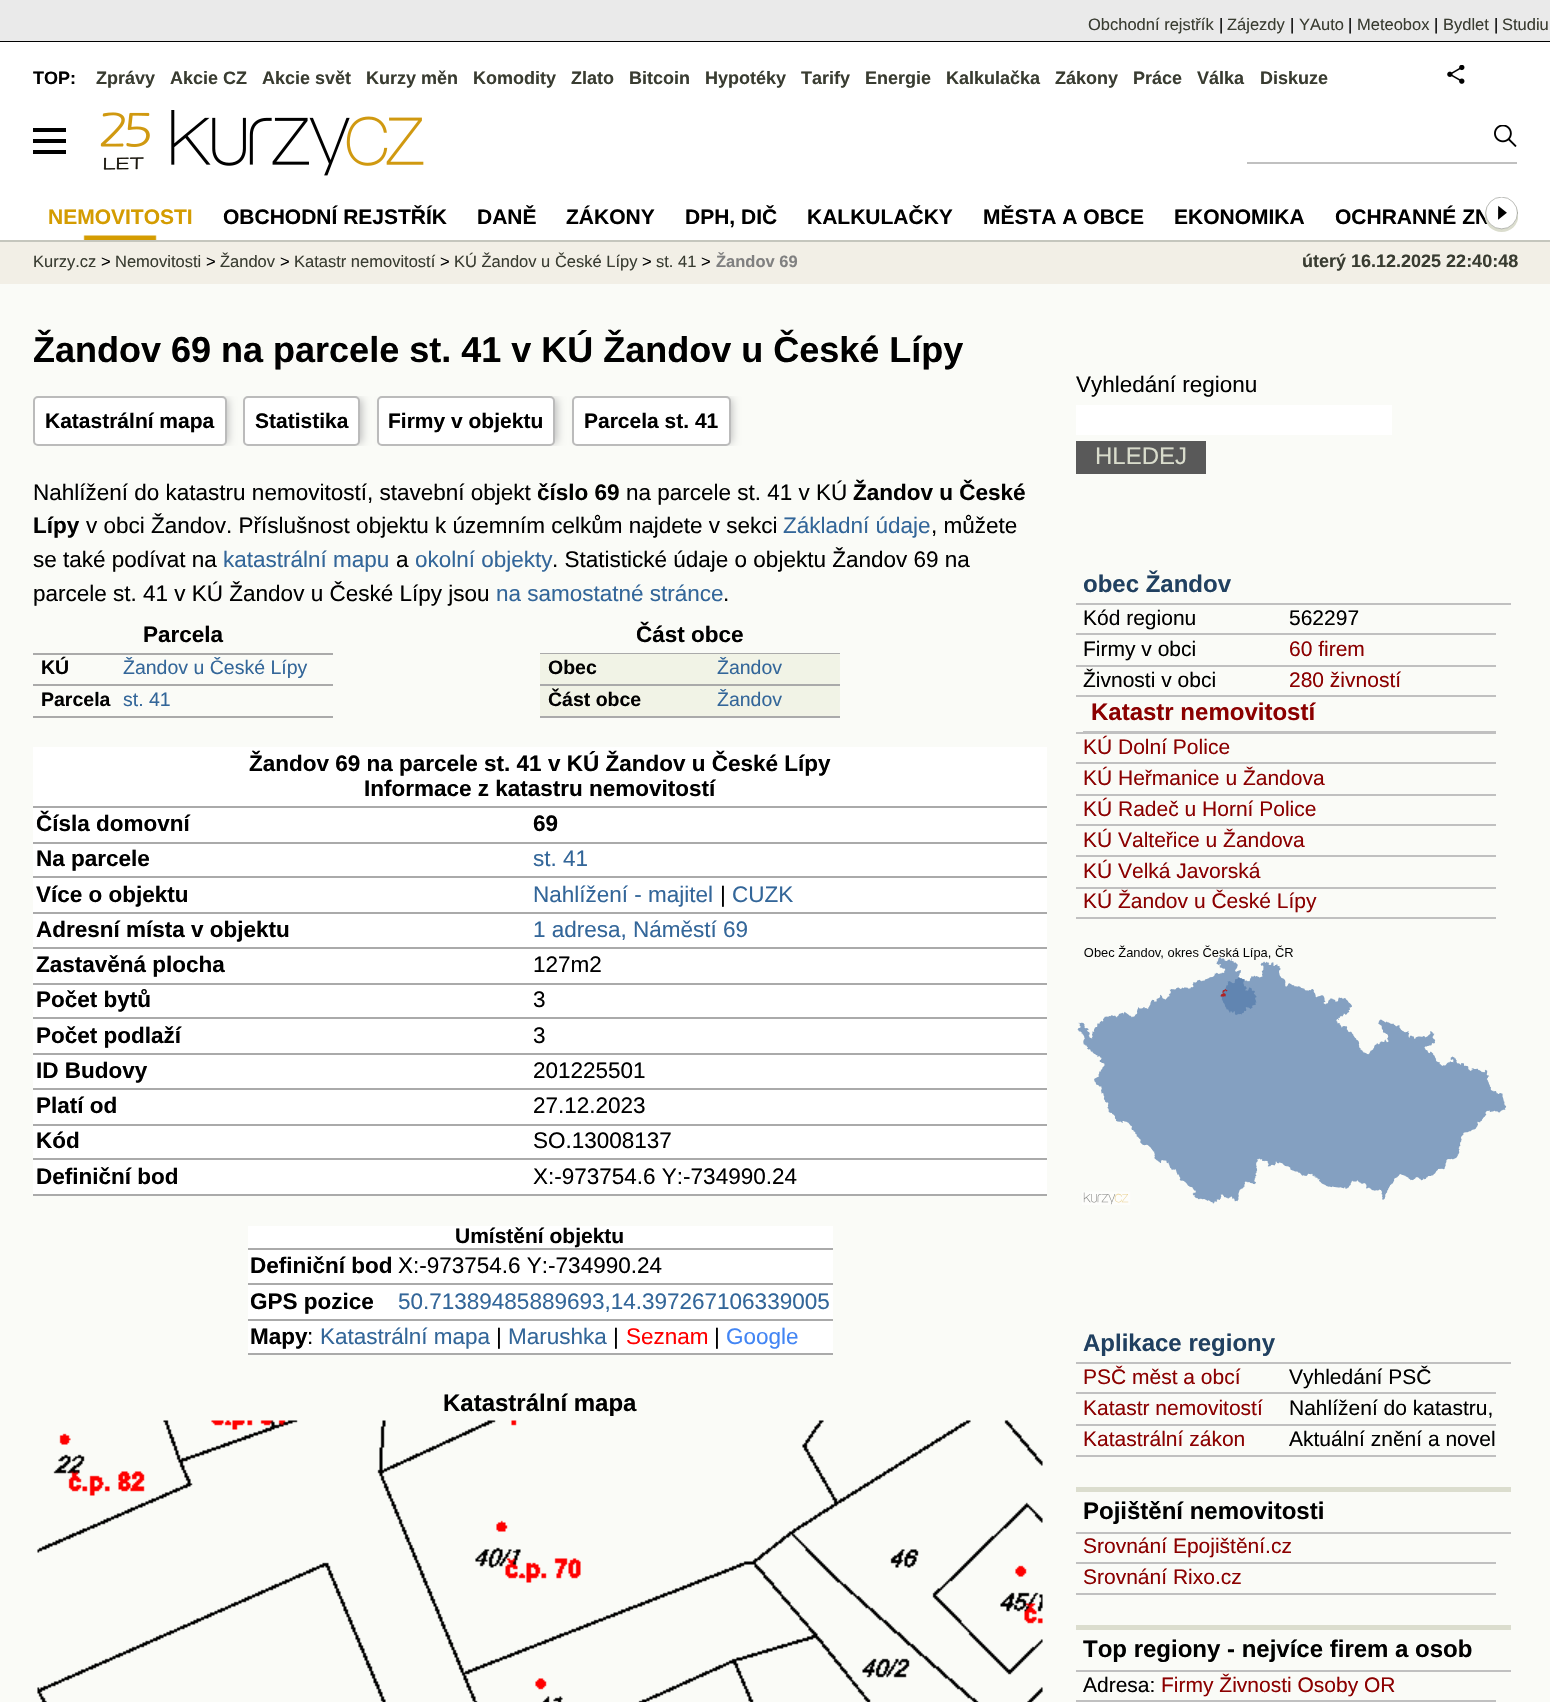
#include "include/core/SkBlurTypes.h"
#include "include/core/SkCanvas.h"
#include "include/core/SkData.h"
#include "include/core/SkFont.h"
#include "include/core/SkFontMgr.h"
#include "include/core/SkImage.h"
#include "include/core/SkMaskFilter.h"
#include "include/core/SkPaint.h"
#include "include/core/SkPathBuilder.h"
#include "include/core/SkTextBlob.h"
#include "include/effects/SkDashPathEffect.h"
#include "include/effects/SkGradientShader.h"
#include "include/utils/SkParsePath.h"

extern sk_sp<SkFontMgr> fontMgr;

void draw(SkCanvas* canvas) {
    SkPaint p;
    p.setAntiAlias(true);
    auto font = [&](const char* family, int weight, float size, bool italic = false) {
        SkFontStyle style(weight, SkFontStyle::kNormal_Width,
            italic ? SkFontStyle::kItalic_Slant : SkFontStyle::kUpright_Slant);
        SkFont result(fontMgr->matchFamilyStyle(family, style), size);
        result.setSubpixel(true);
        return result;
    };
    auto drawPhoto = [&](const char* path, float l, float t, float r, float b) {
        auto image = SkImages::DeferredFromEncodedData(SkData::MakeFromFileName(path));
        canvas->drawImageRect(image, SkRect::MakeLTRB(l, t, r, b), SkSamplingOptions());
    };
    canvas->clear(0xFFEAEAEA);
    p.setColor(0xFFFAFBF7);
    canvas->drawRect(SkRect::MakeLTRB(0, 284, 1550, 1702), p);
    p.setColor(0xFF000000);
    canvas->drawRect(SkRect::MakeLTRB(0, 41, 1550, 42), p);
    auto font1 = font("Liberation Sans", 400, 16.5f);
    p.setColor(0xFF393C31);
    canvas->drawString("Obchodní rejstřík", 1088, 30, font1, p);
    p.setColor(0xFF000000);
    canvas->drawString("|", 1219, 30, font1, p);
    p.setColor(0xFF393C31);
    canvas->drawString("Zájezdy", 1227, 30, font1, p);
    p.setColor(0xFF000000);
    canvas->drawString("|", 1290, 30, font1, p);
    p.setColor(0xFF393C31);
    canvas->drawString("YAuto", 1299, 30, font1, p);
    p.setColor(0xFF000000);
    canvas->drawString("|", 1348, 30, font1, p);
    p.setColor(0xFF393C31);
    canvas->drawString("Meteobox", 1357, 30, font1, p);
    p.setColor(0xFF000000);
    canvas->drawString("|", 1434, 30, font1, p);
    p.setColor(0xFF393C31);
    canvas->drawString("Bydlet", 1443, 30, font1, p);
    p.setColor(0xFF000000);
    canvas->drawString("|", 1494, 30, font1, p);
    p.setColor(0xFF393C31);
    canvas->drawString("Studiu", 1502, 30, font1, p);
    p.setColor(0xFFFFFFFF);
    canvas->drawRect(SkRect::MakeLTRB(0, 42, 1550, 240), p);
    p.setColor(0xFF000000);
    canvas->drawRect(SkRect::MakeLTRB(33, 128, 66, 132), p);
    drawPhoto("media/1.png", 100, 110, 424, 176);
    p.setColor(0xFFC0C0C0);
    canvas->drawRect(SkRect::MakeLTRB(1247, 162, 1517, 164), p);
    drawPhoto("media/2.png", 1494, 125, 1517, 147);
    p.setColor(0xFF000000);
    canvas->drawRect(SkRect::MakeLTRB(33, 139, 66, 143), p);
    canvas->drawRect(SkRect::MakeLTRB(33, 150, 66, 154), p);
    auto font2 = font("Liberation Sans", 700, 18);
    canvas->drawString("TOP:", 33, 84, font2, p);
    p.setColor(0xFF393C31);
    {
        const struct { const char* s; float x, y; } items[] = {
            {"Zprávy", 96, 84},
            {"Akcie CZ", 170, 84},
            {"Akcie svět", 262, 84},
            {"Kurzy měn", 366, 84},
            {"Komodity", 473, 84},
            {"Zlato", 571, 84},
            {"Bitcoin", 629, 84},
            {"Hypotéky", 705, 84},
            {"Tarify", 801, 84},
            {"Energie", 865, 84},
            {"Kalkulačka", 946, 84},
            {"Zákony", 1055, 84},
            {"Práce", 1133, 84},
            {"Válka", 1197, 84},
            {"Diskuze", 1260, 84},
        };
        for (auto [s, x, y] : items) {
            canvas->drawString(s, x, y, font2, p);
        }
    }
    drawPhoto("media/3.png", 1447, 65, 1465, 84);
    p.setColor(0xFFF2EFE6);
    canvas->drawRect(SkRect::MakeLTRB(0, 242, 1550, 284), p);
    p.setColor(0xFF393C31);
    canvas->drawString("Kurzy.cz", 33, 267, font1, p);
    p.setColor(0xFF000000);
    canvas->drawString(">", 101, 267, font1, p);
    p.setColor(0xFF393C31);
    canvas->drawString("Nemovitosti", 115, 267, font1, p);
    p.setColor(0xFF000000);
    canvas->drawString(">", 206, 267, font1, p);
    p.setColor(0xFF393C31);
    canvas->drawString("Žandov", 220, 267, font1, p);
    p.setColor(0xFF000000);
    canvas->drawString(">", 280, 267, font1, p);
    p.setColor(0xFF393C31);
    canvas->drawString("Katastr nemovitostí", 294, 267, font1, p);
    p.setColor(0xFF000000);
    canvas->drawString(">", 440, 267, font1, p);
    p.setColor(0xFF393C31);
    canvas->drawString("KÚ Žandov u České Lípy", 454, 267, font1, p);
    p.setColor(0xFF000000);
    canvas->drawString(">", 642, 267, font1, p);
    p.setColor(0xFF393C31);
    canvas->drawString("st. 41", 656, 267, font1, p);
    p.setColor(0xFF000000);
    canvas->drawString(">", 701, 267, font1, p);
    auto font3 = font("Liberation Sans", 700, 16.5f);
    p.setColor(0xFF808080);
    canvas->drawString("Žandov 69", 716, 267, font3, p);
    p.setColor(0xFF393C31);
    canvas->drawString("úterý 16.12.2025 22:40:48", 1302, 267, font2, p);
    auto font4 = font("Liberation Sans", 700, 36);
    p.setColor(0xFF000000);
    canvas->drawString("Žandov 69 na parcele st. 41 v KÚ Žandov u České Lípy", 33, 362, font4, p);
    canvas->save();
    canvas->clipRect(SkRect::MakeLTRB(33, 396, 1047, 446));
    p.setColor(0xFFBBBBBB);
    p.setMaskFilter(SkMaskFilter::MakeBlur(kNormal_SkBlurStyle, 4));
    canvas->drawRoundRect(SkRect::MakeLTRB(41, 399, 228, 443), 1.5f, 1.5f, p);
    p.setMaskFilter(nullptr);
    canvas->restore();
    p.setColor(0xFFFFFFFF);
    canvas->drawRoundRect(SkRect::MakeLTRB(34, 397, 226, 445), 4, 4, p);
    p.setStyle(SkPaint::kStroke_Style);
    p.setStrokeWidth(2);
    p.setColor(0xFFBBBBBB);
    canvas->drawRoundRect(SkRect::MakeLTRB(34, 397, 226, 445), 4, 4, p);
    auto font5 = font("Liberation Sans", 700, 21);
    p.setStyle(SkPaint::kFill_Style);
    p.setColor(0xFF000000);
    canvas->drawString("Katastrální mapa", 45, 428, font5, p);
    canvas->save();
    canvas->clipRect(SkRect::MakeLTRB(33, 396, 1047, 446));
    p.setColor(0xFFBBBBBB);
    p.setMaskFilter(SkMaskFilter::MakeBlur(kNormal_SkBlurStyle, 4));
    canvas->drawRoundRect(SkRect::MakeLTRB(251, 399, 362, 443), 1.5f, 1.5f, p);
    p.setMaskFilter(nullptr);
    canvas->restore();
    p.setColor(0xFFFFFFFF);
    canvas->drawRoundRect(SkRect::MakeLTRB(244, 397, 359, 445), 4, 4, p);
    p.setStyle(SkPaint::kStroke_Style);
    p.setColor(0xFFBBBBBB);
    canvas->drawRoundRect(SkRect::MakeLTRB(244, 397, 359, 445), 4, 4, p);
    p.setStyle(SkPaint::kFill_Style);
    p.setColor(0xFF000000);
    canvas->drawString("Statistika", 255, 428, font5, p);
    canvas->save();
    canvas->clipRect(SkRect::MakeLTRB(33, 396, 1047, 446));
    p.setColor(0xFFBBBBBB);
    p.setMaskFilter(SkMaskFilter::MakeBlur(kNormal_SkBlurStyle, 4));
    canvas->drawRoundRect(SkRect::MakeLTRB(384, 399, 557, 443), 1.5f, 1.5f, p);
    p.setMaskFilter(nullptr);
    canvas->restore();
    p.setColor(0xFFFFFFFF);
    canvas->drawRoundRect(SkRect::MakeLTRB(378, 397, 554, 445), 4, 4, p);
    p.setStyle(SkPaint::kStroke_Style);
    p.setColor(0xFFBBBBBB);
    canvas->drawRoundRect(SkRect::MakeLTRB(378, 397, 554, 445), 4, 4, p);
    p.setStyle(SkPaint::kFill_Style);
    p.setColor(0xFF000000);
    canvas->drawString("Firmy v objektu", 388, 428, font5, p);
    canvas->save();
    canvas->clipRect(SkRect::MakeLTRB(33, 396, 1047, 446));
    p.setColor(0xFFBBBBBB);
    p.setMaskFilter(SkMaskFilter::MakeBlur(kNormal_SkBlurStyle, 4));
    canvas->drawRoundRect(SkRect::MakeLTRB(579, 399, 732, 443), 1.5f, 1.5f, p);
    p.setMaskFilter(nullptr);
    canvas->restore();
    p.setColor(0xFFFFFFFF);
    canvas->drawRoundRect(SkRect::MakeLTRB(573, 397, 730, 445), 4, 4, p);
    p.setStyle(SkPaint::kStroke_Style);
    p.setColor(0xFFBBBBBB);
    canvas->drawRoundRect(SkRect::MakeLTRB(573, 397, 730, 445), 4, 4, p);
    p.setStyle(SkPaint::kFill_Style);
    p.setColor(0xFF000000);
    canvas->drawString("Parcela st. 41", 584, 428, font5, p);
    auto font6 = font("Liberation Sans", 400, 22.5f);
    canvas->drawString("Nahlížení do katastru nemovitostí, stavební objekt", 33, 500, font6, p);
    auto font7 = font("Liberation Sans", 700, 22.5f);
    canvas->drawString("číslo 69", 537, 500, font7, p);
    canvas->drawString("na parcele st. 41 v KÚ", 626, 500, font6, p);
    canvas->drawString("Žandov u České", 853, 500, font7, p);
    canvas->drawString("Lípy", 33, 533, font7, p);
    canvas->drawString("v obci Žandov. Příslušnost objektu k územním celkům najdete v sekci", 86, 533, font6, p);
    p.setColor(0xFF336699);
    canvas->drawString("Základní údaje", 783, 533, font6, p);
    p.setColor(0xFF000000);
    canvas->drawString(", můžete", 931, 533, font6, p);
    canvas->drawString("se také podívat na", 33, 567, font6, p);
    p.setColor(0xFF336699);
    canvas->drawString("katastrální mapu", 223, 567, font6, p);
    p.setColor(0xFF000000);
    canvas->drawString("a", 396, 567, font6, p);
    p.setColor(0xFF336699);
    canvas->drawString("okolní objekty", 415, 567, font6, p);
    p.setColor(0xFF000000);
    canvas->drawString(". Statistické údaje o objektu Žandov 69 na", 552, 567, font6, p);
    canvas->drawString("parcele st. 41 v KÚ Žandov u České Lípy jsou", 33, 601, font6, p);
    p.setColor(0xFF336699);
    canvas->drawString("na samostatné stránce", 496, 601, font6, p);
    p.setColor(0xFF000000);
    canvas->drawString(".", 723, 601, font6, p);
    p.setColor(0xFFAAAAAA);
    canvas->drawRect(SkRect::MakeLTRB(33, 653, 333, 655), p);
    p.setColor(0xFF000000);
    canvas->drawString("Parcela", 143, 642, font7, p);
    p.setColor(0xFFAAAAAA);
    canvas->drawRect(SkRect::MakeLTRB(33, 684, 333, 686), p);
    auto font8 = font("Liberation Sans", 700, 19.5f);
    p.setColor(0xFF000000);
    canvas->drawString("KÚ", 41, 674, font8, p);
    auto font9 = font("Liberation Sans", 400, 19.5f);
    p.setColor(0xFF336699);
    canvas->drawString("Žandov u České Lípy", 123, 674, font9, p);
    p.setColor(0xFFAAAAAA);
    canvas->drawRect(SkRect::MakeLTRB(33, 716, 333, 718), p);
    p.setColor(0xFF000000);
    canvas->drawString("Parcela", 41, 706, font8, p);
    p.setColor(0xFF336699);
    canvas->drawString("st. 41", 123, 706, font9, p);
    p.setColor(0xFFAAAAAA);
    canvas->drawRect(SkRect::MakeLTRB(540, 653, 840, 654), p);
    p.setColor(0xFF000000);
    canvas->drawString("Část obce", 636, 642, font7, p);
    p.setColor(0xFFF1F3E6);
    canvas->drawRect(SkRect::MakeLTRB(540, 654, 840, 684), p);
    p.setColor(0xFFAAAAAA);
    canvas->drawRect(SkRect::MakeLTRB(540, 684, 840, 686), p);
    p.setColor(0xFF000000);
    canvas->drawString("Obec", 548, 674, font8, p);
    p.setColor(0xFF336699);
    canvas->drawString("Žandov", 717, 674, font9, p);
    p.setColor(0xFFF1F3E6);
    canvas->drawRect(SkRect::MakeLTRB(540, 686, 840, 716), p);
    p.setColor(0xFFAAAAAA);
    canvas->drawRect(SkRect::MakeLTRB(540, 716, 840, 718), p);
    p.setColor(0xFF000000);
    canvas->drawString("Část obce", 548, 706, font8, p);
    p.setColor(0xFF336699);
    canvas->drawString("Žandov", 717, 706, font9, p);
    p.setColor(0xFFFFFFFF);
    canvas->drawRect(SkRect::MakeLTRB(33, 747, 1047, 1194), p);
    p.setColor(0xFFAAAAAA);
    canvas->drawRect(SkRect::MakeLTRB(33, 806, 1047, 808), p);
    p.setColor(0xFF000000);
    canvas->drawString("Žandov 69 na parcele st. 41 v KÚ Žandov u České Lípy", 249, 771, font7, p);
    canvas->drawString("Informace z katastru nemovitostí", 364, 796, font7, p);
    p.setColor(0xFFAAAAAA);
    canvas->drawRect(SkRect::MakeLTRB(33, 842, 1047, 844), p);
    p.setColor(0xFF000000);
    canvas->drawString("Čísla domovní", 36, 831, font7, p);
    canvas->drawString("69", 533, 831, font7, p);
    p.setColor(0xFFAAAAAA);
    canvas->drawRect(SkRect::MakeLTRB(33, 876, 1047, 878), p);
    p.setColor(0xFF000000);
    canvas->drawString("Na parcele", 36, 866, font7, p);
    p.setColor(0xFF336699);
    canvas->drawString("st. 41", 533, 866, font6, p);
    p.setColor(0xFFAAAAAA);
    canvas->drawRect(SkRect::MakeLTRB(33, 912, 1047, 914), p);
    p.setColor(0xFF000000);
    canvas->drawString("Více o objektu", 36, 902, font7, p);
    p.setColor(0xFF336699);
    canvas->drawString("Nahlížení - majitel", 533, 902, font6, p);
    p.setColor(0xFF000000);
    canvas->drawString("|", 720, 902, font6, p);
    p.setColor(0xFF336699);
    canvas->drawString("CUZK", 732, 902, font6, p);
    p.setColor(0xFFAAAAAA);
    canvas->drawRect(SkRect::MakeLTRB(33, 947, 1047, 949), p);
    p.setColor(0xFF000000);
    canvas->drawString("Adresní místa v objektu", 36, 937, font7, p);
    p.setColor(0xFF336699);
    canvas->drawString("1 adresa, Náměstí 69", 533, 937, font6, p);
    p.setColor(0xFFAAAAAA);
    canvas->drawRect(SkRect::MakeLTRB(33, 983, 1047, 985), p);
    p.setColor(0xFF000000);
    canvas->drawString("Zastavěná plocha", 36, 972, font7, p);
    canvas->drawString("127m2", 533, 972, font6, p);
    p.setColor(0xFFAAAAAA);
    canvas->drawRect(SkRect::MakeLTRB(33, 1017, 1047, 1019), p);
    p.setColor(0xFF000000);
    canvas->drawString("Počet bytů", 36, 1007, font7, p);
    canvas->drawString("3", 533, 1007, font6, p);
    p.setColor(0xFFAAAAAA);
    canvas->drawRect(SkRect::MakeLTRB(33, 1053, 1047, 1055), p);
    p.setColor(0xFF000000);
    canvas->drawString("Počet podlaží", 36, 1043, font7, p);
    canvas->drawString("3", 533, 1043, font6, p);
    p.setColor(0xFFAAAAAA);
    canvas->drawRect(SkRect::MakeLTRB(33, 1088, 1047, 1090), p);
    p.setColor(0xFF000000);
    canvas->drawString("ID Budovy", 36, 1078, font7, p);
    canvas->drawString("201225501", 533, 1078, font6, p);
    p.setColor(0xFFAAAAAA);
    canvas->drawRect(SkRect::MakeLTRB(33, 1124, 1047, 1126), p);
    p.setColor(0xFF000000);
    canvas->drawString("Platí od", 36, 1113, font7, p);
    canvas->drawString("27.12.2023", 533, 1113, font6, p);
    p.setColor(0xFFAAAAAA);
    canvas->drawRect(SkRect::MakeLTRB(33, 1158, 1047, 1160), p);
    p.setColor(0xFF000000);
    canvas->drawString("Kód", 36, 1148, font7, p);
    canvas->drawString("SO.13008137", 533, 1148, font6, p);
    p.setColor(0xFFAAAAAA);
    canvas->drawRect(SkRect::MakeLTRB(33, 1194, 1047, 1196), p);
    p.setColor(0xFF000000);
    canvas->drawString("Definiční bod", 36, 1184, font7, p);
    canvas->drawString("X:-973754.6 Y:-734990.24", 533, 1184, font6, p);
    p.setColor(0xFFFFFFFF);
    canvas->drawRect(SkRect::MakeLTRB(248, 1226, 833, 1353), p);
    p.setColor(0xFFAAAAAA);
    canvas->drawRect(SkRect::MakeLTRB(248, 1248, 833, 1250), p);
    p.setColor(0xFF000000);
    canvas->drawString("Umístění objektu", 455, 1243, font5, p);
    p.setColor(0xFFAAAAAA);
    canvas->drawRect(SkRect::MakeLTRB(248, 1283, 833, 1285), p);
    p.setColor(0xFF000000);
    canvas->drawString("Definiční bod", 250, 1273, font7, p);
    canvas->drawString("X:-973754.6 Y:-734990.24", 398, 1273, font6, p);
    p.setColor(0xFFAAAAAA);
    canvas->drawRect(SkRect::MakeLTRB(248, 1319, 833, 1321), p);
    p.setColor(0xFF000000);
    canvas->drawString("GPS pozice", 250, 1309, font7, p);
    p.setColor(0xFF336699);
    canvas->drawString("50.71389485889693,14.397267106339005", 398, 1309, font6, p);
    p.setColor(0xFFAAAAAA);
    canvas->drawRect(SkRect::MakeLTRB(248, 1353, 833, 1355), p);
    p.setColor(0xFF000000);
    canvas->drawString("Mapy", 250, 1344, font7, p);
    canvas->drawString(":", 307, 1344, font6, p);
    p.setColor(0xFF336699);
    canvas->drawString("Katastrální mapa", 320, 1344, font6, p);
    p.setColor(0xFF000000);
    canvas->drawString("|", 496, 1344, font6, p);
    p.setColor(0xFF336699);
    canvas->drawString("Marushka", 508, 1344, font6, p);
    p.setColor(0xFF000000);
    canvas->drawString("|", 613, 1344, font6, p);
    p.setColor(0xFFFF0000);
    canvas->drawString("Seznam", 626, 1344, font6, p);
    p.setColor(0xFF000000);
    canvas->drawString("|", 714, 1344, font6, p);
    p.setColor(0xFF4285F4);
    canvas->drawString("Google", 726, 1344, font6, p);
    auto font10 = font("Liberation Sans", 700, 24);
    p.setColor(0xFF000000);
    canvas->drawString("Katastrální mapa", 443, 1411, font10, p);
    drawPhoto("media/4.png", 37, 1420, 1043, 1702);
    canvas->drawString("Vyhledání regionu", 1076, 392, font6, p);
    p.setColor(0xFFFFFFFF);
    canvas->drawRect(SkRect::MakeLTRB(1076, 405, 1392, 435), p);
    p.setColor(0xFF595959);
    canvas->drawRect(SkRect::MakeLTRB(1076, 441, 1206, 474), p);
    auto font11 = font("Liberation Sans", 400, 24);
    p.setColor(0xFFD9DCCC);
    canvas->drawString("HLEDEJ", 1095, 464, font11, p);
    p.setColor(0xFFC0C0C0);
    canvas->drawRect(SkRect::MakeLTRB(1076, 603, 1511, 605), p);
    p.setColor(0xFF204060);
    canvas->drawString("obec Žandov", 1083, 592, font10, p);
    p.setColor(0xFFC0C0C0);
    canvas->drawRect(SkRect::MakeLTRB(1076, 633, 1496, 635), p);
    auto font12 = font("Liberation Sans", 400, 21);
    p.setColor(0xFF000000);
    canvas->drawString("Kód regionu", 1083, 625, font12, p);
    canvas->drawString("562297", 1289, 625, font12, p);
    p.setColor(0xFFC0C0C0);
    canvas->drawRect(SkRect::MakeLTRB(1076, 665, 1496, 667), p);
    p.setColor(0xFF000000);
    canvas->drawString("Firmy v obci", 1083, 656, font12, p);
    p.setColor(0xFF8B0000);
    canvas->drawString("60 firem", 1289, 656, font12, p);
    p.setColor(0xFFC0C0C0);
    canvas->drawRect(SkRect::MakeLTRB(1076, 695, 1496, 697), p);
    p.setColor(0xFF000000);
    canvas->drawString("Živnosti v obci", 1083, 687, font12, p);
    p.setColor(0xFF8B0000);
    canvas->drawString("280 živností", 1289, 687, font12, p);
    p.setColor(0xFFC0C0C0);
    canvas->drawRect(SkRect::MakeLTRB(1076, 732, 1496, 734), p);
    canvas->drawRect(SkRect::MakeLTRB(1083, 731, 1496, 732), p);
    p.setColor(0xFF8B0000);
    canvas->drawString("Katastr nemovitostí", 1091, 720, font10, p);
    p.setColor(0xFFC0C0C0);
    canvas->drawRect(SkRect::MakeLTRB(1076, 762, 1496, 764), p);
    p.setColor(0xFF8B0000);
    canvas->drawString("KÚ Dolní Police", 1083, 754, font12, p);
    p.setColor(0xFFC0C0C0);
    canvas->drawRect(SkRect::MakeLTRB(1076, 794, 1496, 796), p);
    p.setColor(0xFF8B0000);
    canvas->drawString("KÚ Heřmanice u Žandova", 1083, 785, font12, p);
    p.setColor(0xFFC0C0C0);
    canvas->drawRect(SkRect::MakeLTRB(1076, 824, 1496, 826), p);
    p.setColor(0xFF8B0000);
    canvas->drawString("KÚ Radeč u Horní Police", 1083, 816, font12, p);
    p.setColor(0xFFC0C0C0);
    canvas->drawRect(SkRect::MakeLTRB(1076, 855, 1496, 857), p);
    p.setColor(0xFF8B0000);
    canvas->drawString("KÚ Valteřice u Žandova", 1083, 847, font12, p);
    p.setColor(0xFFC0C0C0);
    canvas->drawRect(SkRect::MakeLTRB(1076, 887, 1496, 889), p);
    p.setColor(0xFF8B0000);
    canvas->drawString("KÚ Velká Javorská", 1083, 878, font12, p);
    p.setColor(0xFFC0C0C0);
    canvas->drawRect(SkRect::MakeLTRB(1076, 917, 1496, 919), p);
    p.setColor(0xFF8B0000);
    canvas->drawString("KÚ Žandov u České Lípy", 1083, 908, font12, p);
    drawPhoto("media/5.png", 1077, 945, 1507, 1205);
    p.setColor(0xFFC0C0C0);
    canvas->drawRect(SkRect::MakeLTRB(1076, 1362, 1511, 1364), p);
    p.setColor(0xFF204060);
    canvas->drawString("Aplikace regiony", 1083, 1351, font10, p);
    p.setColor(0xFFC0C0C0);
    canvas->drawRect(SkRect::MakeLTRB(1076, 1392, 1496, 1394), p);
    p.setColor(0xFF8B0000);
    canvas->drawString("PSČ měst a obcí", 1083, 1384, font12, p);
    p.setColor(0xFF000000);
    canvas->drawString("Vyhledání PSČ", 1289, 1384, font12, p);
    p.setColor(0xFFC0C0C0);
    canvas->drawRect(SkRect::MakeLTRB(1076, 1424, 1496, 1426), p);
    p.setColor(0xFF8B0000);
    canvas->drawString("Katastr nemovitostí", 1083, 1415, font12, p);
    p.setColor(0xFF000000);
    canvas->drawString("Nahlížení do katastru,", 1289, 1415, font12, p);
    p.setColor(0xFFC0C0C0);
    canvas->drawRect(SkRect::MakeLTRB(1076, 1455, 1496, 1457), p);
    p.setColor(0xFF8B0000);
    canvas->drawString("Katastrální zákon", 1083, 1446, font12, p);
    p.setColor(0xFF000000);
    canvas->drawString("Aktuální znění a novel", 1289, 1446, font12, p);
    p.setColor(0xFFDBDDCE);
    canvas->drawRect(SkRect::MakeLTRB(1076, 1487, 1511, 1492), p);
    p.setColor(0xFFC0C0C0);
    canvas->drawRect(SkRect::MakeLTRB(1076, 1532, 1511, 1534), p);
    p.setColor(0xFF000000);
    canvas->drawString("Pojištění nemovitosti", 1083, 1519, font10, p);
    p.setColor(0xFFC0C0C0);
    canvas->drawRect(SkRect::MakeLTRB(1076, 1562, 1496, 1564), p);
    p.setColor(0xFF8B0000);
    canvas->drawString("Srovnání Epojištění.cz", 1083, 1553, font12, p);
    p.setColor(0xFFC0C0C0);
    canvas->drawRect(SkRect::MakeLTRB(1076, 1593, 1496, 1595), p);
    p.setColor(0xFF8B0000);
    canvas->drawString("Srovnání Rixo.cz", 1083, 1584, font12, p);
    p.setColor(0xFFDBDDCE);
    canvas->drawRect(SkRect::MakeLTRB(1076, 1625, 1511, 1630), p);
    p.setColor(0xFFC0C0C0);
    canvas->drawRect(SkRect::MakeLTRB(1076, 1670, 1511, 1672), p);
    p.setColor(0xFF000000);
    canvas->drawString("Top regiony - nejvíce firem a osob", 1083, 1657, font10, p);
    p.setColor(0xFFC0C0C0);
    canvas->drawRect(SkRect::MakeLTRB(1076, 1700, 1496, 1702), p);
    p.setColor(0xFF000000);
    canvas->drawString("Adresa:", 1083, 1692, font12, p);
    p.setColor(0xFF8B0000);
    canvas->drawString("Firmy Živnosti Osoby OR", 1161, 1692, font12, p);
    p.setColor(0xFFC5C6BD);
    canvas->drawRect(SkRect::MakeLTRB(0, 240, 1550, 242), p);
    drawPhoto("media/6.png", 83, 235, 157, 240);
    p.setColor(0xFFD49C01);
    canvas->drawString("NEMOVITOSTI", 48, 224, font5, p);
    p.setColor(0xFF000000);
    {
        const struct { const char* s; float x, y; } items[] = {
            {"OBCHODNÍ REJSTŘÍK", 223, 224},
            {"DANĚ", 477, 224},
            {"ZÁKONY", 566, 224},
            {"DPH, DIČ", 685, 224},
            {"KALKULAČKY", 807, 224},
            {"MĚSTA A OBCE", 983, 224},
            {"EKONOMIKA", 1174, 224},
            {"OCHRANNÉ ZN", 1335, 224},
        };
        for (auto [s, x, y] : items) {
            canvas->drawString(s, x, y, font5, p);
        }
    }
    drawPhoto("media/7.png", 1484, 197, 1518, 232);
}
